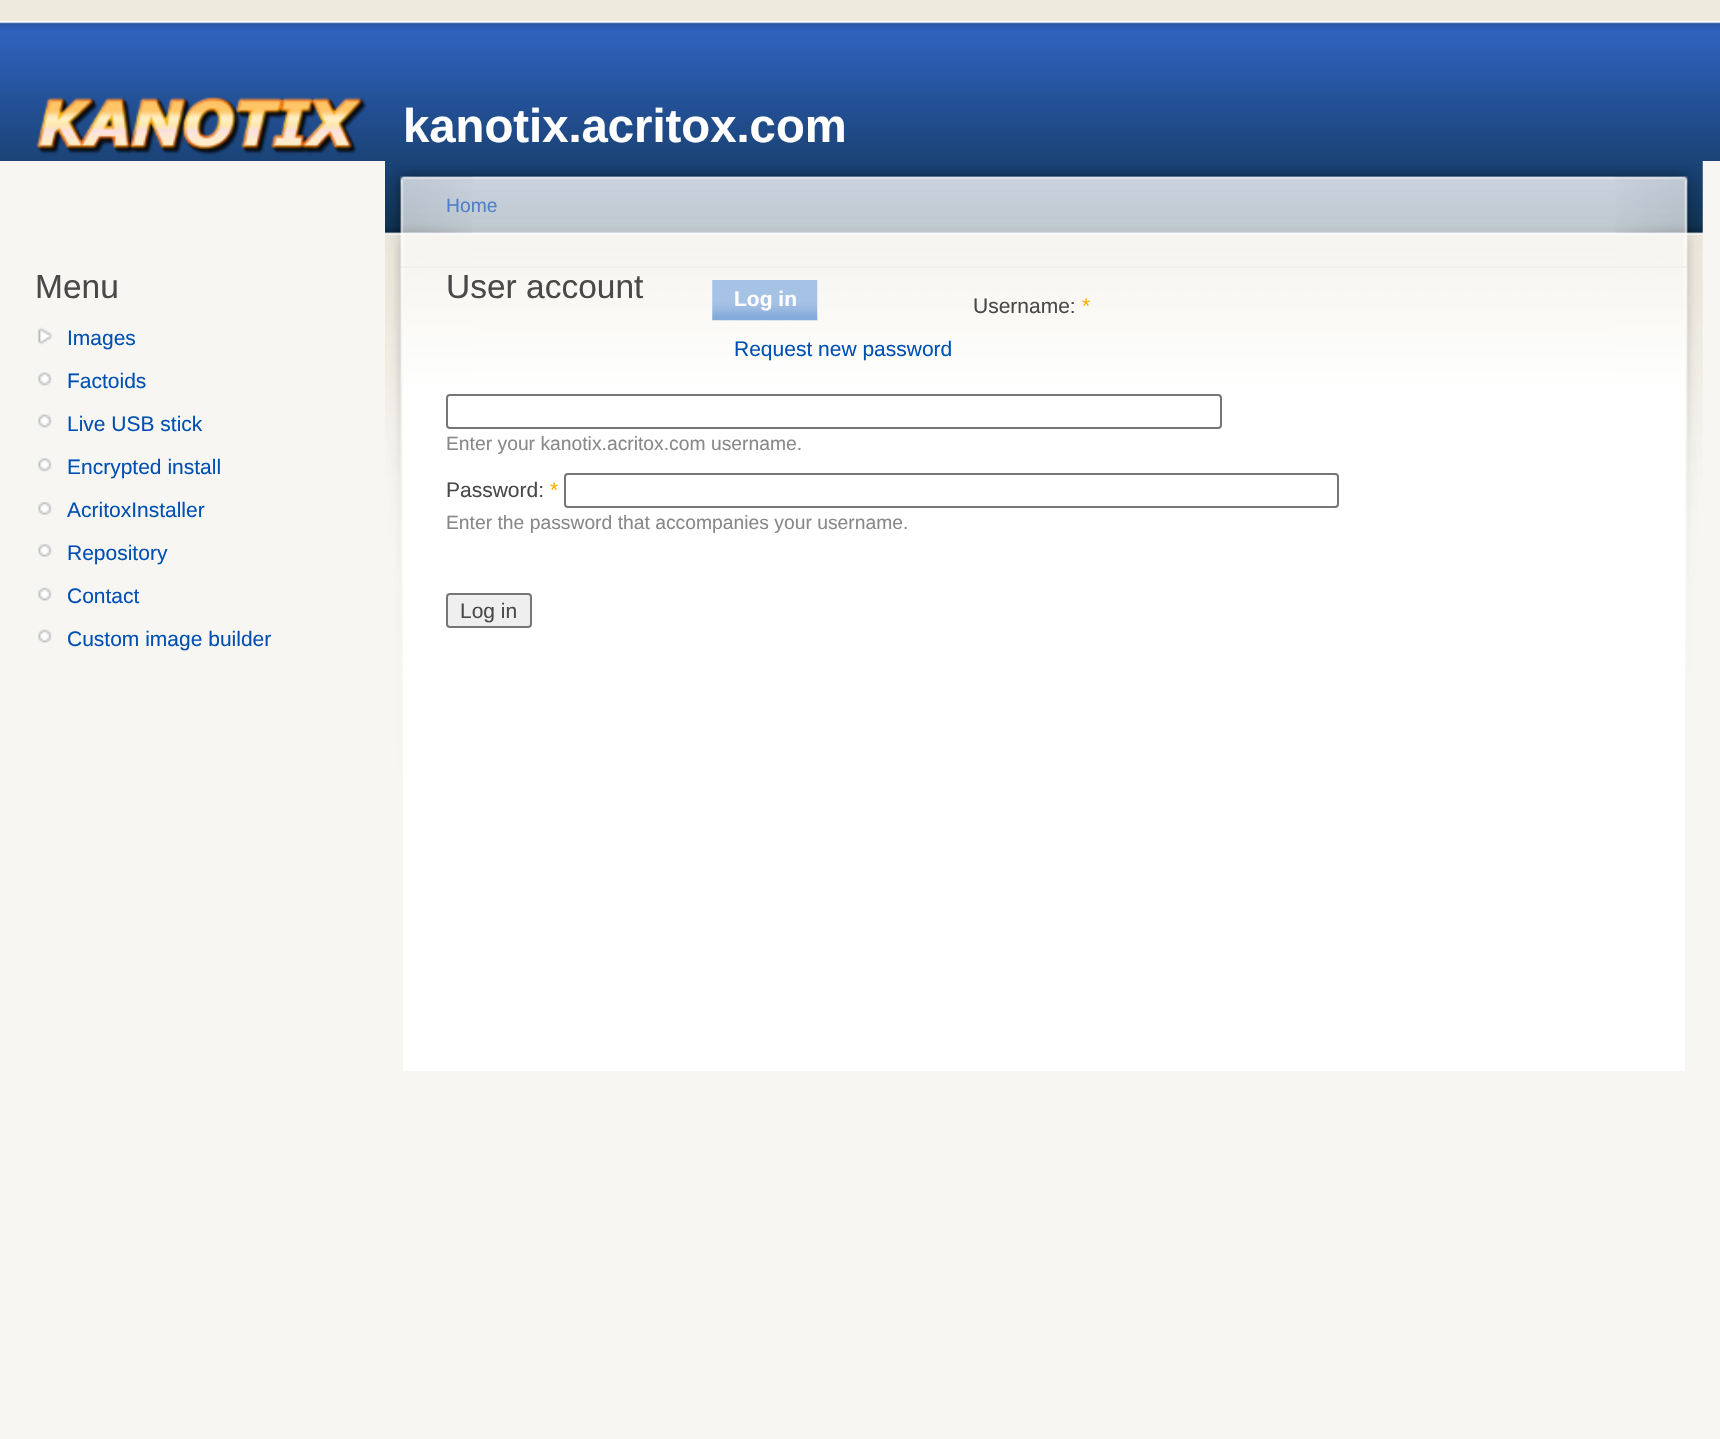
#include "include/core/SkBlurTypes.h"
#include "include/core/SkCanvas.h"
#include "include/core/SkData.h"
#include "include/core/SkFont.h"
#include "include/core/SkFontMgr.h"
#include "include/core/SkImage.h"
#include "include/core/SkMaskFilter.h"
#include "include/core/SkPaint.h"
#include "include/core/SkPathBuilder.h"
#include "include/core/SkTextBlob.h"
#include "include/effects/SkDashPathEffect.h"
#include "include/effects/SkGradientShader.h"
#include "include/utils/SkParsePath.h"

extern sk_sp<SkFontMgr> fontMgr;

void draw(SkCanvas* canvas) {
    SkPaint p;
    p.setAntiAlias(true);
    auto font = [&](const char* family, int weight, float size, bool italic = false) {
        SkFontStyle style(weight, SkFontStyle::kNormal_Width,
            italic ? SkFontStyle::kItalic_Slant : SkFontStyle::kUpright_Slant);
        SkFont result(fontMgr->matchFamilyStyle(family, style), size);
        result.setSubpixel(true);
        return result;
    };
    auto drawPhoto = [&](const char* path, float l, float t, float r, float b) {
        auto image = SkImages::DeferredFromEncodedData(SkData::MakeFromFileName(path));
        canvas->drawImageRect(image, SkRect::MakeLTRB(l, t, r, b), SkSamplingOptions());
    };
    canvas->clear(0xFFF8F6F2);
    p.setColor(0xFFEEEADE);
    canvas->drawRect(SkRect::MakeLTRB(0, 0, 1720, 21), p);
    drawPhoto("media/1.png", 0, 21, 1720, 161);
    drawPhoto("media/2.png", 36, 96, 367, 155);
    auto font1 = font("Liberation Sans", 700, 47.25f);
    p.setColor(0xFFFFFFFF);
    canvas->drawString("kanotix.acritox.com", 403, 142, font1, p);
    auto font2 = font("Liberation Sans", 400, 33.5f);
    p.setColor(0xFF494949);
    canvas->drawString("Menu", 35, 298, font2, p);
    drawPhoto("media/3.png", 38, 327, 53, 345);
    auto font3 = font("Liberation Sans", 400, 21);
    p.setColor(0xFF0050B3);
    canvas->drawString("Images", 67, 345, font3, p);
    drawPhoto("media/4.png", 38, 372, 52, 386);
    canvas->drawString("Factoids", 67, 388, font3, p);
    drawPhoto("media/4.png", 38, 414, 52, 428);
    canvas->drawString("Live USB stick", 67, 431, font3, p);
    drawPhoto("media/5.png", 38, 458, 52, 472);
    canvas->drawString("Encrypted install", 67, 474, font3, p);
    drawPhoto("media/6.png", 38, 502, 52, 515);
    canvas->drawString("AcritoxInstaller", 67, 517, font3, p);
    drawPhoto("media/6.png", 38, 544, 52, 557);
    canvas->drawString("Repository", 67, 560, font3, p);
    drawPhoto("media/7.png", 38, 587, 52, 601);
    canvas->drawString("Contact", 67, 603, font3, p);
    drawPhoto("media/7.png", 38, 629, 52, 643);
    canvas->drawString("Custom image builder", 67, 646, font3, p);
    p.setColor(0xFFFFFFFF);
    canvas->drawRect(SkRect::MakeLTRB(403, 511, 1685, 1071), p);
    drawPhoto("media/8.png", 472, 161, 1616, 511);
    drawPhoto("media/9.png", 1615, 161, 1703, 678);
    drawPhoto("media/10.png", 385, 161, 473, 777);
    auto font4 = font("Liberation Sans", 400, 19.3f);
    p.setColor(0xFF507EC8);
    canvas->drawString("Home", 446, 212, font4, p);
    p.setColor(0xFFF0F0EF);
    canvas->drawRect(SkRect::MakeLTRB(401, 266, 1687, 268), p);
    p.setColor(0xFF494949);
    canvas->drawString("User account", 446, 298, font2, p);
    drawPhoto("media/11.png", 712, 280, 818, 321);
    auto font5 = font("Liberation Sans", 700, 21);
    p.setColor(0xFFFFFFFF);
    canvas->drawString("Log in", 734, 306, font5, p);
    p.setColor(0xFF0050B3);
    canvas->drawString("Request new password", 734, 356, font3, p);
    p.setColor(0xFF494949);
    canvas->drawString("Username:", 973, 313, font3, p);
    p.setColor(0xFFFFAE00);
    canvas->drawString("*", 1082, 313, font3, p);
    p.setStyle(SkPaint::kStroke_Style);
    p.setStrokeWidth(2);
    p.setColor(0xFF767676);
    canvas->drawRoundRect(SkRect::MakeLTRB(447, 395, 1221, 428), 3, 3, p);
    p.setStyle(SkPaint::kFill_Style);
    p.setColor(0xFF898989);
    canvas->drawString("Enter your kanotix.acritox.com username.", 446, 450, font4, p);
    p.setColor(0xFF494949);
    canvas->drawString("Password:", 446, 497, font3, p);
    p.setColor(0xFFFFAE00);
    canvas->drawString("*", 550, 497, font3, p);
    p.setStyle(SkPaint::kStroke_Style);
    p.setColor(0xFF767676);
    canvas->drawRoundRect(SkRect::MakeLTRB(565, 474, 1338, 507), 3, 3, p);
    p.setStyle(SkPaint::kFill_Style);
    p.setColor(0xFF898989);
    canvas->drawString("Enter the password that accompanies your username.", 446, 529, font4, p);
    p.setColor(0xFFEFEFEF);
    canvas->drawRoundRect(SkRect::MakeLTRB(447, 594, 531, 627), 3, 3, p);
    p.setStyle(SkPaint::kStroke_Style);
    p.setColor(0xFF767676);
    canvas->drawRoundRect(SkRect::MakeLTRB(447, 594, 531, 627), 3, 3, p);
    p.setStyle(SkPaint::kFill_Style);
    p.setColor(0xFF494949);
    canvas->drawString("Log in", 460, 618, font3, p);
}
